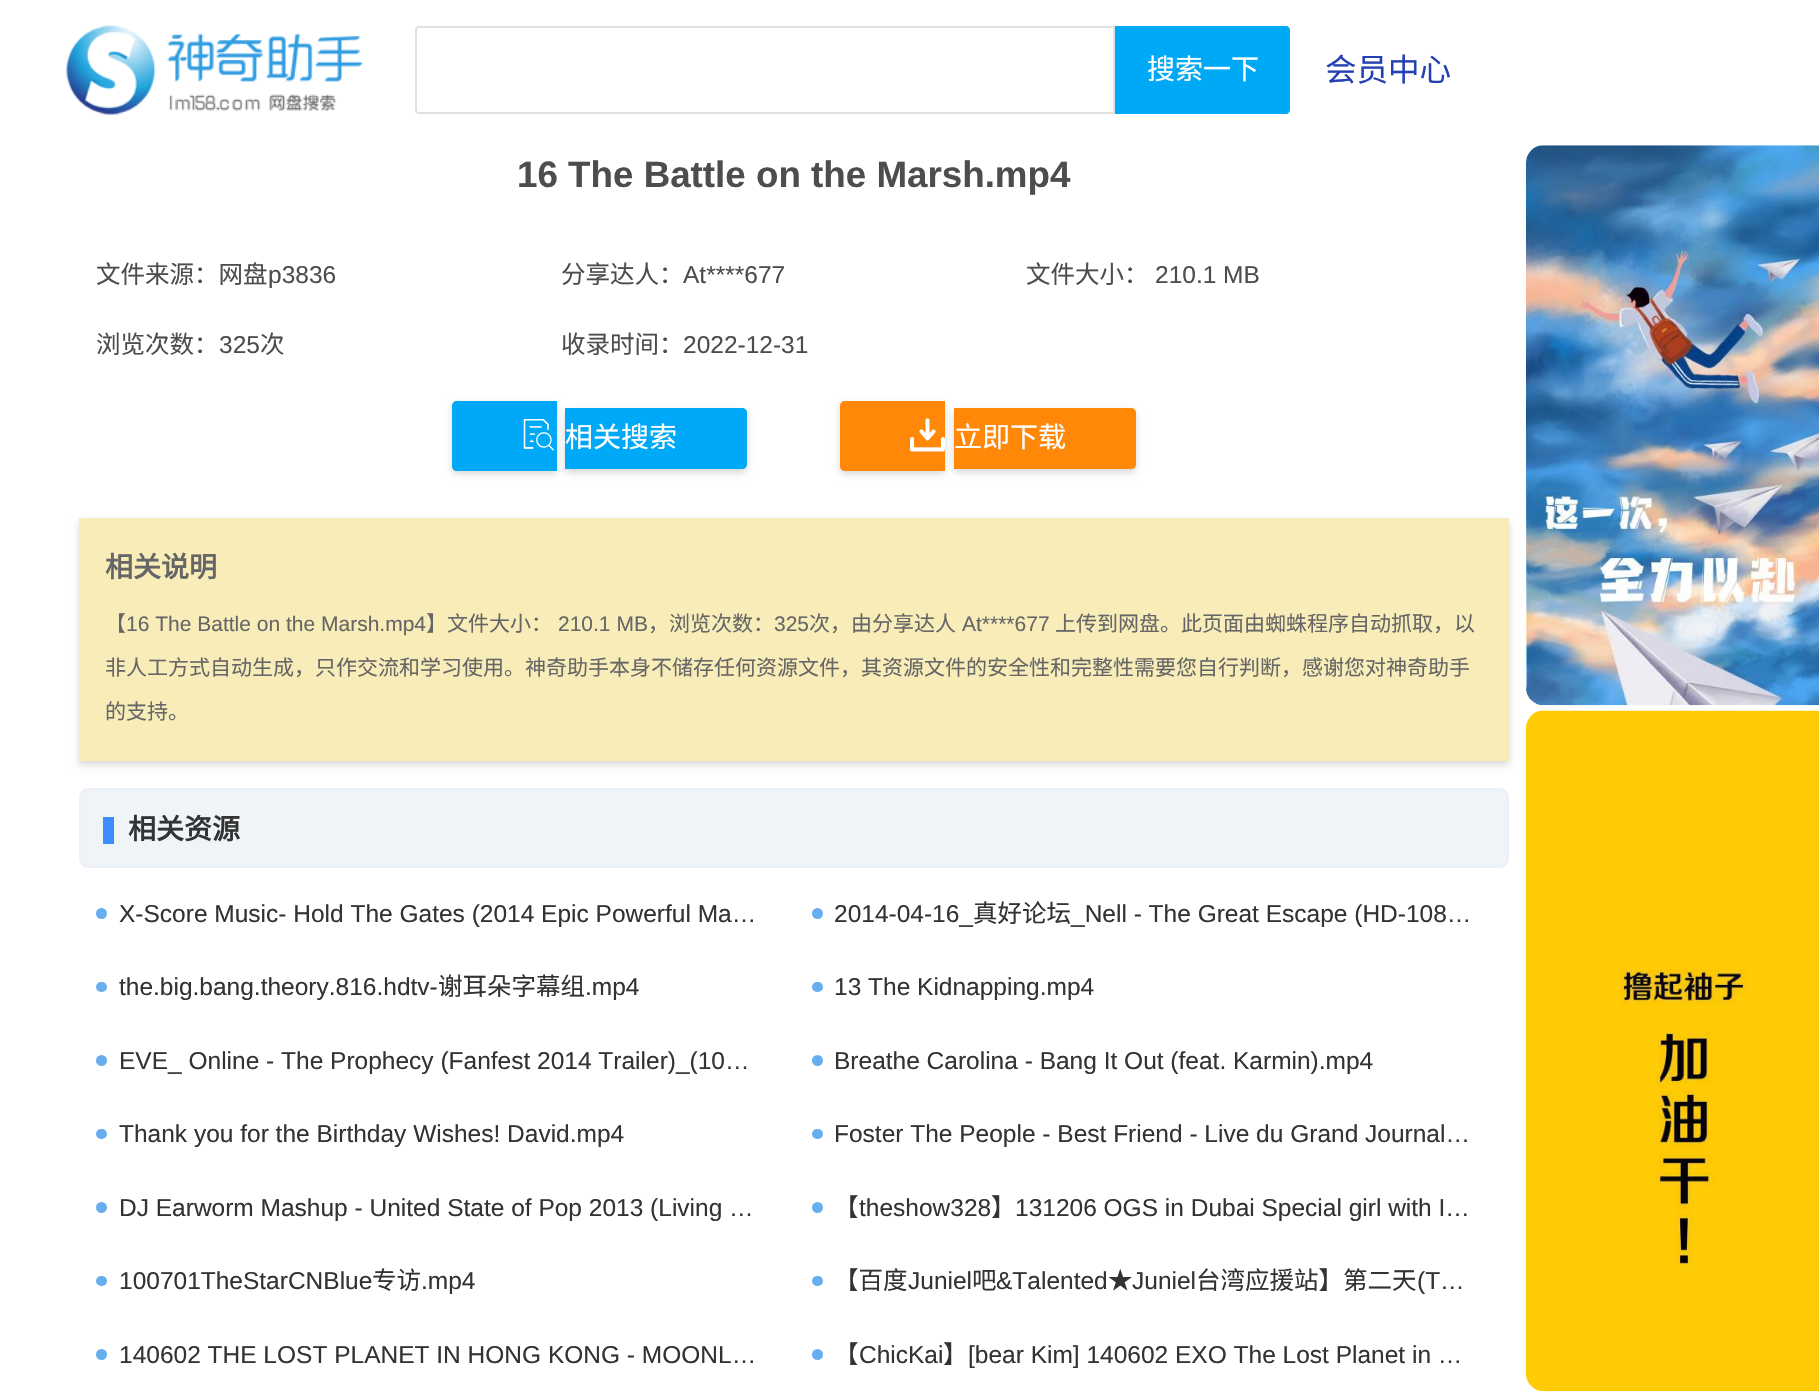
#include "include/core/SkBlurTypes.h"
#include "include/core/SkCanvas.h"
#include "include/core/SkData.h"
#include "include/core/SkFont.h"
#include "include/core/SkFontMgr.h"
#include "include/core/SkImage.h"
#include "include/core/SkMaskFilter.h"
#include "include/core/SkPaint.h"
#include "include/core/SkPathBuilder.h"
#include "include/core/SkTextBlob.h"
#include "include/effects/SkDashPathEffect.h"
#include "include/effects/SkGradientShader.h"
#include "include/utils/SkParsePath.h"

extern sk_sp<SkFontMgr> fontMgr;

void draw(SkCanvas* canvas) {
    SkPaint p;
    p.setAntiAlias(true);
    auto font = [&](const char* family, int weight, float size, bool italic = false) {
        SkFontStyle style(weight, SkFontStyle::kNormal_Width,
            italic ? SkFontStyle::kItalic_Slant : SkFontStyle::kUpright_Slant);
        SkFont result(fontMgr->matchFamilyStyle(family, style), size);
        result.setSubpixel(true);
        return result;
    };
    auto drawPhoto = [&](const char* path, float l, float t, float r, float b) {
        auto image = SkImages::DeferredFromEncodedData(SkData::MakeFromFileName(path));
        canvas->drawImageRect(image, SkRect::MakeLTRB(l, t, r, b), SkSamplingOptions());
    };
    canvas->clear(0xFFFFFFFF);
    drawPhoto("media/1.png", 66, 25, 363, 115);
    p.setStyle(SkPaint::kStroke_Style);
    p.setStrokeWidth(2);
    p.setColor(0xFFE0E0E0);
    canvas->drawPath(SkPathBuilder().moveTo(419, 27).lineTo(1114, 27).lineTo(1114, 113).lineTo(419, 113).cubicTo(417.5f, 113, 416, 111.5f, 416, 110).lineTo(416, 30).cubicTo(416, 28.5f, 417.5f, 27, 419, 27).close().detach(), p);
    p.setStyle(SkPaint::kFill_Style);
    p.setColor(0xFF00A9F6);
    canvas->drawPath(SkPathBuilder().moveTo(1115, 26).lineTo(1286, 26).cubicTo(1288, 26, 1290, 28, 1290, 30).lineTo(1290, 110).cubicTo(1290, 112, 1288, 114, 1286, 114).lineTo(1115, 114).close().detach(), p);
    auto font1 = font("Noto Sans CJK SC", 400, 28);
    p.setColor(0xFFFFFFFF);
    canvas->drawString("搜索一下", 1147, 79, font1, p);
    auto font2 = font("Noto Sans CJK SC", 400, 31.5f);
    p.setColor(0xFF2440B3);
    canvas->drawString("会员中心", 1325, 81, font2, p);
    auto font3 = font("Liberation Sans", 700, 36.75f);
    p.setColor(0xFF4D4D4D);
    canvas->drawString("16 The Battle on the Marsh.mp4", 517, 187, font3, p);
    auto font4 = font("Noto Sans CJK SC", 400, 24.5f);
    canvas->drawString("文件来源：网盘", 96, 283, font4, p);
    auto font5 = font("Liberation Sans", 400, 24.5f);
    canvas->drawString("p3836", 268, 283, font5, p);
    canvas->drawString("分享达人：", 561, 283, font4, p);
    canvas->drawString("At****677", 683, 283, font5, p);
    canvas->drawString("文件大小：", 1026, 283, font4, p);
    canvas->drawString("210.1 MB", 1155, 283, font5, p);
    canvas->drawString("浏览次数：", 96, 353, font4, p);
    canvas->drawString("325", 219, 353, font5, p);
    canvas->drawString("次", 260, 353, font4, p);
    canvas->drawString("收录时间：", 561, 353, font4, p);
    canvas->drawString("2022-12-31", 683, 353, font5, p);
    p.setColor(0xFFD9D9D9);
    p.setMaskFilter(SkMaskFilter::MakeBlur(kNormal_SkBlurStyle, 3.5f));
    canvas->drawRoundRect(SkRect::MakeLTRB(452, 404, 557, 474), 5, 5, p);
    p.setMaskFilter(nullptr);
    p.setColor(0xFF00A9F8);
    canvas->drawPath(SkPathBuilder().moveTo(457, 401).lineTo(557, 401).lineTo(557, 471).lineTo(457, 471).cubicTo(454, 471, 452, 469, 452, 466).lineTo(452, 406).cubicTo(452, 403, 454, 401, 457, 401).close().detach(), p);
    p.setColor(0xFFD9D9D9);
    p.setMaskFilter(SkMaskFilter::MakeBlur(kNormal_SkBlurStyle, 3.5f));
    canvas->drawRoundRect(SkRect::MakeLTRB(565, 411, 747, 473), 5, 5, p);
    p.setMaskFilter(nullptr);
    drawPhoto("media/2.png", 523, 419, 555, 451);
    p.setColor(0xFF00A9F8);
    canvas->drawPath(SkPathBuilder().moveTo(565, 408).lineTo(742, 408).cubicTo(745, 408, 747, 410, 747, 413).lineTo(747, 464).cubicTo(747, 467, 745, 469, 742, 469).lineTo(565, 469).close().detach(), p);
    p.setColor(0xFFFFFFFF);
    canvas->drawString("相关搜索", 565, 447, font1, p);
    p.setColor(0xFFD9D9D9);
    p.setMaskFilter(SkMaskFilter::MakeBlur(kNormal_SkBlurStyle, 3.5f));
    canvas->drawRoundRect(SkRect::MakeLTRB(840, 404, 945, 474), 5, 5, p);
    p.setMaskFilter(nullptr);
    p.setColor(0xFFFF8808);
    canvas->drawPath(SkPathBuilder().moveTo(845, 401).lineTo(945, 401).lineTo(945, 471).lineTo(845, 471).cubicTo(842, 471, 840, 469, 840, 466).lineTo(840, 406).cubicTo(840, 403, 842, 401, 845, 401).close().detach(), p);
    p.setColor(0xFFD9D9D9);
    p.setMaskFilter(SkMaskFilter::MakeBlur(kNormal_SkBlurStyle, 3.5f));
    canvas->drawRoundRect(SkRect::MakeLTRB(954, 411, 1136, 473), 5, 5, p);
    p.setMaskFilter(nullptr);
    drawPhoto("media/3.png", 910, 418, 945, 452);
    p.setColor(0xFFFF8808);
    canvas->drawPath(SkPathBuilder().moveTo(954, 408).lineTo(1131, 408).cubicTo(1134, 408, 1136, 410, 1136, 413).lineTo(1136, 464).cubicTo(1136, 467, 1134, 469, 1131, 469).lineTo(954, 469).close().detach(), p);
    p.setColor(0xFFFFFFFF);
    canvas->drawString("立即下载", 954, 447, font1, p);
    p.setColor(0xFFD9D9D9);
    p.setMaskFilter(SkMaskFilter::MakeBlur(kNormal_SkBlurStyle, 3.5f));
    canvas->drawRect(SkRect::MakeLTRB(79, 522, 1509, 765), p);
    p.setMaskFilter(nullptr);
    p.setColor(0xFFF8ECB8);
    canvas->drawRect(SkRect::MakeLTRB(79, 518, 1509, 761), p);
    auto font6 = font("Noto Sans CJK SC", 700, 28);
    p.setColor(0xFF666666);
    canvas->drawString("相关说明", 105, 577, font6, p);
    auto font7 = font("Noto Sans CJK SC", 400, 21);
    canvas->drawString("【", 105, 631, font7, p);
    auto font8 = font("Liberation Sans", 400, 21);
    canvas->drawString("16 The Battle on the Marsh.mp4", 126, 631, font8, p);
    canvas->drawString("】文件大小：", 426, 631, font7, p);
    canvas->drawString("210.1 MB", 558, 631, font8, p);
    canvas->drawString("，浏览次数：", 648, 631, font7, p);
    canvas->drawString("325", 774, 631, font8, p);
    canvas->drawString("次，由分享达人", 809, 631, font7, p);
    canvas->drawString("At****677", 962, 631, font8, p);
    {
        const struct { const char* s; float x, y; } items[] = {
            {"上传到网盘。此页面由蜘蛛程序自动抓取，以", 1055, 631},
            {"非人工方式自动生成，只作交流和学习使用。神奇助手本身不储存任何资源文件，其资源文件的安全性和完整性需要您自行判断，感谢您对神奇助手", 105, 675},
            {"的支持。", 105, 719},
        };
        for (auto [s, x, y] : items) {
            canvas->drawString(s, x, y, font7, p);
        }
    }
    p.setColor(0xFFEFF4F8);
    canvas->drawRoundRect(SkRect::MakeLTRB(80, 789, 1508, 867), 8, 8, p);
    p.setStyle(SkPaint::kStroke_Style);
    p.setColor(0xFFEDF1F5);
    canvas->drawRoundRect(SkRect::MakeLTRB(80, 789, 1508, 867), 8, 8, p);
    p.setStyle(SkPaint::kFill_Style);
    p.setColor(0xFF3B8CFF);
    canvas->drawRect(SkRect::MakeLTRB(103, 817, 114, 844), p);
    p.setColor(0xFF333333);
    canvas->drawString("相关资源", 128, 839, font6, p);
    p.setColor(0xFF66AEEE);
    canvas->drawCircle(101.5f, 913.5f, 5.5f, p);
    p.setColor(0xFF333333);
    canvas->drawString("X-Score Music- Hold The Gates (2014 Epic Powerful Ma…", 119, 922, font5, p);
    p.setColor(0xFF66AEEE);
    canvas->drawCircle(817.5f, 913.5f, 5.5f, p);
    p.setColor(0xFF333333);
    canvas->drawString("2014-04-16_", 834, 922, font5, p);
    canvas->drawString("真好论坛", 973, 922, font4, p);
    canvas->drawString("_Nell - The Great Escape (HD-108…", 1071, 922, font5, p);
    p.setColor(0xFF66AEEE);
    canvas->drawRoundRect(SkRect::MakeLTRB(96, 982, 107, 992), 5, 5, p);
    p.setColor(0xFF333333);
    canvas->drawString("the.big.bang.theory.816.hdtv-", 119, 995, font5, p);
    canvas->drawString("谢耳朵字幕组", 438, 995, font4, p);
    canvas->drawString(".mp4", 585, 995, font5, p);
    p.setColor(0xFF66AEEE);
    canvas->drawRoundRect(SkRect::MakeLTRB(812, 982, 823, 992), 5, 5, p);
    p.setColor(0xFF333333);
    canvas->drawString("13 The Kidnapping.mp4", 834, 995, font5, p);
    p.setColor(0xFF66AEEE);
    canvas->drawCircle(101.5f, 1060.5f, 5.5f, p);
    p.setColor(0xFF333333);
    canvas->drawString("EVE_ Online - The Prophecy (Fanfest 2014 Trailer)_(10…", 119, 1069, font5, p);
    p.setColor(0xFF66AEEE);
    canvas->drawCircle(817.5f, 1060.5f, 5.5f, p);
    p.setColor(0xFF333333);
    canvas->drawString("Breathe Carolina - Bang It Out (feat. Karmin).mp4", 834, 1069, font5, p);
    p.setColor(0xFF66AEEE);
    canvas->drawRoundRect(SkRect::MakeLTRB(96, 1129, 107, 1139), 5, 5, p);
    p.setColor(0xFF333333);
    canvas->drawString("Thank you for the Birthday Wishes! David.mp4", 119, 1142, font5, p);
    p.setColor(0xFF66AEEE);
    canvas->drawRoundRect(SkRect::MakeLTRB(812, 1129, 823, 1139), 5, 5, p);
    p.setColor(0xFF333333);
    canvas->drawString("Foster The People - Best Friend - Live du Grand Journal…", 834, 1142, font5, p);
    p.setColor(0xFF66AEEE);
    canvas->drawCircle(101.5f, 1207.5f, 5.5f, p);
    p.setColor(0xFF333333);
    canvas->drawString("DJ Earworm Mashup - United State of Pop 2013 (Living …", 119, 1216, font5, p);
    p.setColor(0xFF66AEEE);
    canvas->drawCircle(817.5f, 1207.5f, 5.5f, p);
    p.setColor(0xFF333333);
    canvas->drawString("【", 834, 1216, font4, p);
    canvas->drawString("theshow328", 859, 1216, font5, p);
    canvas->drawString("】", 991, 1216, font4, p);
    canvas->drawString("131206 OGS in Dubai Special girl with I…", 1015, 1216, font5, p);
    p.setColor(0xFF66AEEE);
    canvas->drawRoundRect(SkRect::MakeLTRB(96, 1276, 107, 1286), 5, 5, p);
    p.setColor(0xFF333333);
    canvas->drawString("100701TheStarCNBlue", 119, 1289, font5, p);
    canvas->drawString("专访", 372, 1289, font4, p);
    canvas->drawString(".mp4", 421, 1289, font5, p);
    p.setColor(0xFF66AEEE);
    canvas->drawRoundRect(SkRect::MakeLTRB(812, 1276, 823, 1286), 5, 5, p);
    p.setColor(0xFF333333);
    canvas->drawString("【百度", 834, 1289, font4, p);
    canvas->drawString("Juniel", 908, 1289, font5, p);
    canvas->drawString("吧", 972, 1289, font4, p);
    canvas->drawString("&Talented", 996, 1289, font5, p);
    canvas->drawString("★", 1108, 1289, font4, p);
    canvas->drawString("Juniel", 1132, 1289, font5, p);
    canvas->drawString("台湾应援站】第二天", 1196, 1289, font4, p);
    canvas->drawString("(T…", 1417, 1289, font5, p);
    p.setColor(0xFF66AEEE);
    canvas->drawCircle(101.5f, 1354.5f, 5.5f, p);
    p.setColor(0xFF333333);
    canvas->drawString("140602 THE LOST PLANET IN HONG KONG - MOONL…", 119, 1363, font5, p);
    p.setColor(0xFF66AEEE);
    canvas->drawCircle(817.5f, 1354.5f, 5.5f, p);
    p.setColor(0xFF333333);
    canvas->drawString("【", 834, 1363, font4, p);
    canvas->drawString("ChicKai", 859, 1363, font5, p);
    canvas->drawString("】", 943, 1363, font4, p);
    canvas->drawString("[bear Kim] 140602 EXO The Lost Planet in …", 968, 1363, font5, p);
    drawPhoto("media/4.png", 1526, 145, 1819, 706);
    drawPhoto("media/5.png", 1526, 710, 1819, 1392);
}
